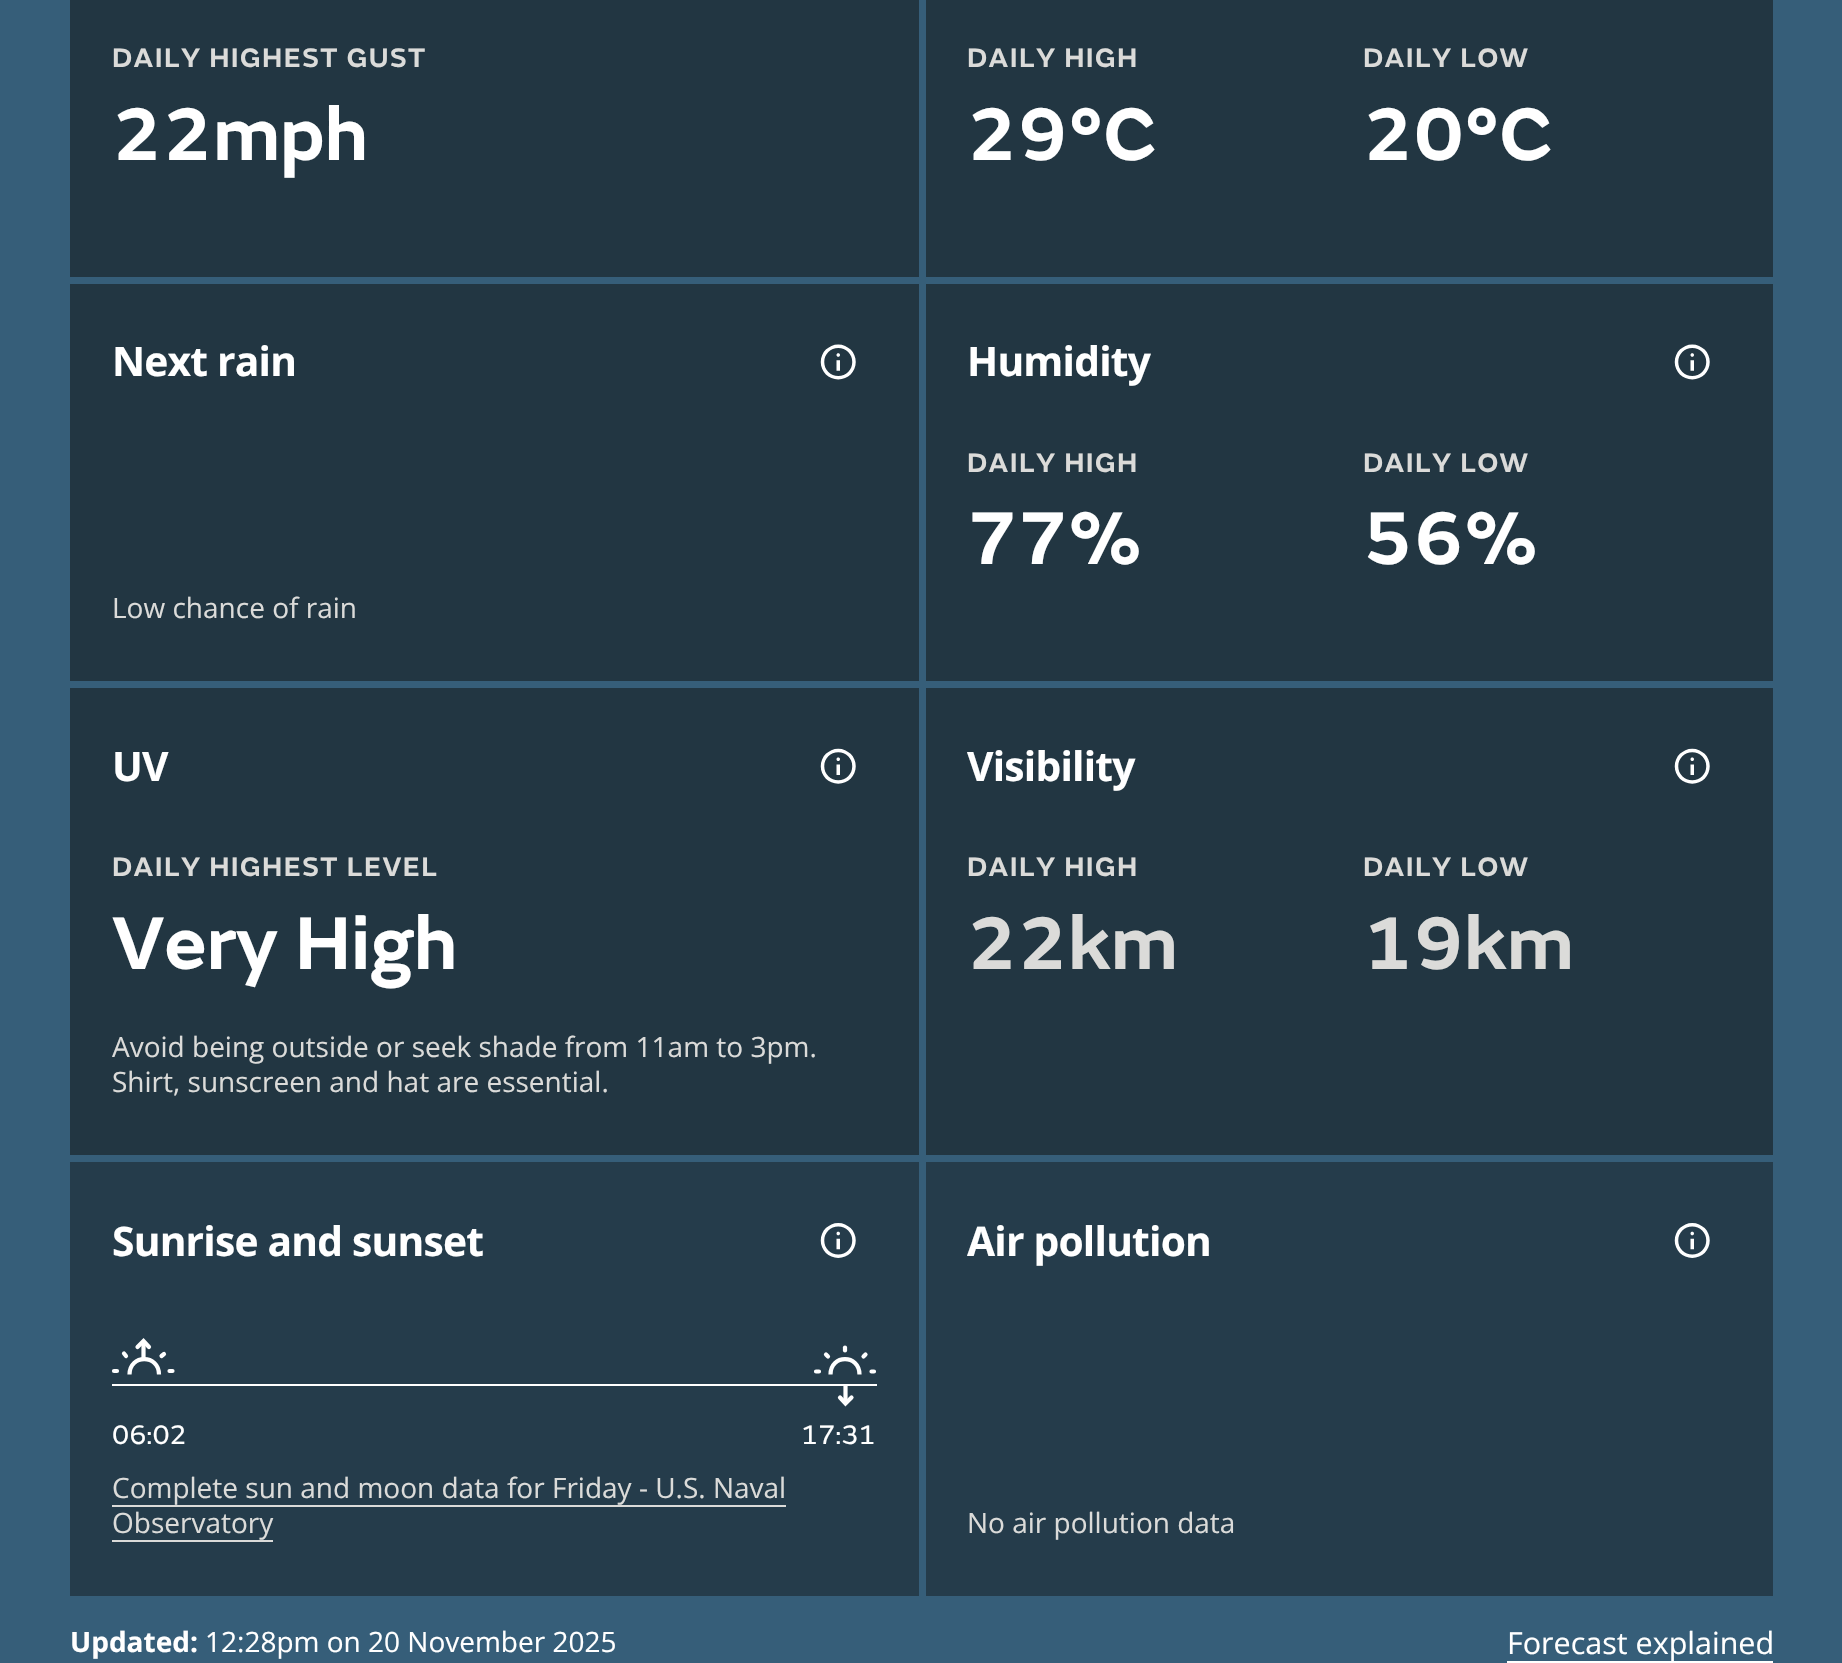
#include "include/core/SkBlurTypes.h"
#include "include/core/SkCanvas.h"
#include "include/core/SkData.h"
#include "include/core/SkFont.h"
#include "include/core/SkFontMgr.h"
#include "include/core/SkImage.h"
#include "include/core/SkMaskFilter.h"
#include "include/core/SkPaint.h"
#include "include/core/SkPathBuilder.h"
#include "include/core/SkTextBlob.h"
#include "include/effects/SkDashPathEffect.h"
#include "include/effects/SkGradientShader.h"
#include "include/utils/SkParsePath.h"

extern sk_sp<SkFontMgr> fontMgr;

void draw(SkCanvas* canvas) {
    SkPaint p;
    p.setAntiAlias(true);
    auto font = [&](const char* family, int weight, float size, bool italic = false) {
        SkFontStyle style(weight, SkFontStyle::kNormal_Width,
            italic ? SkFontStyle::kItalic_Slant : SkFontStyle::kUpright_Slant);
        SkFont result(fontMgr->matchFamilyStyle(family, style), size);
        result.setSubpixel(true);
        return result;
    };
    auto drawTracked = [&](const char* s, float x, float y, const SkFont& font, const SkPaint& ink, float letter, float word) {
        std::vector<SkGlyphID> glyphs(font.countText(s, strlen(s), SkTextEncoding::kUTF8));
        std::vector<float> xs(glyphs.size());
        font.textToGlyphs(s, strlen(s), SkTextEncoding::kUTF8, glyphs);
        font.getXPos(glyphs, xs, x);
        float extra = 0;
        for (size_t i = 0; i < glyphs.size(); i++) {
            xs[i] += extra;
            extra += letter + word * (glyphs[i] == font.unicharToGlyph(' '));
        }
        canvas->drawTextBlob(SkTextBlob::MakeFromPosHGlyphs(glyphs, xs, y, font), 0, 0, ink);
    };
    auto drawPhoto = [&](const char* path, float l, float t, float r, float b) {
        auto image = SkImages::DeferredFromEncodedData(SkData::MakeFromFileName(path));
        canvas->drawImageRect(image, SkRect::MakeLTRB(l, t, r, b), SkSamplingOptions());
    };
    canvas->clear(0xFF365E79);
    p.setColor(0xFF223642);
    canvas->drawRect(SkRect::MakeLTRB(70, 0, 919, 277), p);
    auto font1 = font("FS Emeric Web", 600, 28);
    p.setColor(0xFFDBDBD9);
    drawTracked("DAILY HIGHEST GUST", 112, 67, font1, p, 1.4f, 0);
    auto font2 = font("FS Emeric Web", 600, 77.5f);
    p.setColor(0xFFFFFFFF);
    canvas->drawString("22mph", 112, 160, font2, p);
    p.setColor(0xFF223642);
    canvas->drawRect(SkRect::MakeLTRB(926, 0, 1773, 277), p);
    p.setColor(0xFFDBDBD9);
    drawTracked("DAILY HIGH", 967, 67, font1, p, 1.4f, 0);
    p.setColor(0xFFFFFFFF);
    canvas->drawString("29°C", 967, 160, font2, p);
    p.setColor(0xFFDBDBD9);
    drawTracked("DAILY LOW", 1363, 67, font1, p, 1.4f, 0);
    p.setColor(0xFFFFFFFF);
    canvas->drawString("20°C", 1363, 160, font2, p);
    p.setColor(0xFF223642);
    canvas->drawRect(SkRect::MakeLTRB(70, 284, 919, 681), p);
    auto font3 = font("Open Sans", 700, 40.75f);
    p.setColor(0xFFFFFFFF);
    drawTracked("Next rain", 112, 376, font3, p, -0.8f, 0);
    auto font4 = font("Open Sans", 400, 28);
    p.setColor(0xFFDBDBD9);
    canvas->drawString("Low chance of rain", 112, 618, font4, p);
    drawPhoto("media/1.png", 820, 344, 856, 380);
    p.setColor(0xFF223642);
    canvas->drawRect(SkRect::MakeLTRB(926, 284, 1773, 681), p);
    p.setColor(0xFFFFFFFF);
    drawTracked("Humidity", 967, 376, font3, p, -0.8f, 0);
    p.setColor(0xFFDBDBD9);
    drawTracked("DAILY HIGH", 967, 472, font1, p, 1.4f, 0);
    p.setColor(0xFFFFFFFF);
    canvas->drawString("77%", 967, 564, font2, p);
    p.setColor(0xFFDBDBD9);
    drawTracked("DAILY LOW", 1363, 472, font1, p, 1.4f, 0);
    p.setColor(0xFFFFFFFF);
    canvas->drawString("56%", 1363, 564, font2, p);
    drawPhoto("media/1.png", 1674, 344, 1710, 380);
    p.setColor(0xFF223642);
    canvas->drawRect(SkRect::MakeLTRB(70, 688, 919, 1155), p);
    p.setColor(0xFFFFFFFF);
    drawTracked("UV", 112, 781, font3, p, -0.8f, 0);
    p.setColor(0xFFDBDBD9);
    drawTracked("DAILY HIGHEST LEVEL", 112, 876, font1, p, 1.4f, 0);
    p.setColor(0xFFFFFFFF);
    canvas->drawString("Very High", 112, 969, font2, p);
    p.setColor(0xFFDBDBD9);
    canvas->drawString("Avoid being outside or seek shade from 11am to 3pm.", 112, 1057, font4, p);
    canvas->drawString("Shirt, sunscreen and hat are essential.", 112, 1092, font4, p);
    drawPhoto("media/2.png", 820, 748, 856, 784);
    p.setColor(0xFF223642);
    canvas->drawRect(SkRect::MakeLTRB(926, 688, 1773, 1155), p);
    p.setColor(0xFFFFFFFF);
    drawTracked("Visibility", 967, 781, font3, p, -0.8f, 0);
    p.setColor(0xFFDBDBD9);
    drawTracked("DAILY HIGH", 967, 876, font1, p, 1.4f, 0);
    canvas->drawString("22km", 967, 969, font2, p);
    drawTracked("DAILY LOW", 1363, 876, font1, p, 1.4f, 0);
    canvas->drawString("19km", 1363, 969, font2, p);
    drawPhoto("media/2.png", 1674, 748, 1710, 784);
    p.setColor(0xFF253C4B);
    canvas->drawRect(SkRect::MakeLTRB(70, 1162, 919, 1596), p);
    drawPhoto("media/3.png", 820, 1223, 856, 1258);
    p.setColor(0xFFFFFFFF);
    drawTracked("Sunrise and sunset", 112, 1256, font3, p, -0.8f, 0);
    p.setStyle(SkPaint::kStroke_Style);
    p.setStrokeWidth(4.2f);
    canvas->drawPath(SkPathBuilder().moveTo(129.5f, 1374.5f).cubicTo(129.5f, 1354, 159, 1354, 159, 1374.5f).detach(), p);
    p.setStrokeCap(SkPaint::kRound_Cap);
    canvas->drawPath(SkPathBuilder().moveTo(126, 1356).lineTo(124, 1353.5f).moveTo(164, 1354).lineTo(161.5f, 1356).moveTo(117, 1371).lineTo(114, 1371).moveTo(172.5f, 1371).lineTo(169.5f, 1371).detach(), p);
    p.setStrokeCap(SkPaint::kSquare_Cap);
    canvas->drawPath(SkPathBuilder().moveTo(143.5f, 1346).lineTo(143.5f, 1357).detach(), p);
    p.setStrokeCap(SkPaint::kRound_Cap);
    canvas->drawPath(SkPathBuilder().moveTo(137.5f, 1347).lineTo(143.5f, 1341).lineTo(149, 1347).detach(), p);
    canvas->drawPath(SkPathBuilder().moveTo(845, 1350.5f).lineTo(845, 1347.5f).detach(), p);
    p.setStrokeCap(SkPaint::kButt_Cap);
    canvas->drawPath(SkPathBuilder().moveTo(830.5f, 1374.5f).cubicTo(830.5f, 1354, 859.5f, 1354, 859.5f, 1374.5f).detach(), p);
    p.setStrokeCap(SkPaint::kRound_Cap);
    canvas->drawPath(SkPathBuilder().moveTo(828, 1356.5f).lineTo(826, 1354.5f).moveTo(865.5f, 1354.5f).lineTo(863.5f, 1356.5f).moveTo(819, 1371.5f).lineTo(816, 1371.5f).moveTo(874, 1371.5f).lineTo(871.5f, 1371.5f).detach(), p);
    p.setStyle(SkPaint::kFill_Style);
    canvas->drawRect(SkRect::MakeLTRB(112, 1384, 877, 1386), p);
    canvas->save();
    canvas->clipRect(SkRect::MakeLTRB(814, 1386, 877, 1407));
    p.setStyle(SkPaint::kStroke_Style);
    p.setStrokeCap(SkPaint::kSquare_Cap);
    canvas->drawPath(SkPathBuilder().moveTo(845.5f, 1388).lineTo(845.5f, 1399.5f).detach(), p);
    canvas->restore();
    p.setStrokeCap(SkPaint::kRound_Cap);
    canvas->drawPath(SkPathBuilder().moveTo(840, 1397.5f).lineTo(845.5f, 1403.5f).lineTo(851.5f, 1397.5f).detach(), p);
    auto font5 = font("FS Emeric Web", 400, 28);
    p.setStyle(SkPaint::kFill_Style);
    canvas->drawString("06:02", 112, 1444, font5, p);
    canvas->drawString("17:31", 801, 1444, font5, p);
    p.setColor(0xFFDBDBD9);
    canvas->drawString("Complete sun and moon data for Friday - U.S. Naval", 112, 1498, font4, p);
    canvas->drawRect(SkRect::MakeLTRB(112, 1505, 786, 1507), p);
    canvas->drawString("Observatory", 112, 1533, font4, p);
    canvas->drawRect(SkRect::MakeLTRB(112, 1540, 273, 1542), p);
    p.setColor(0xFF253C4B);
    canvas->drawRect(SkRect::MakeLTRB(926, 1162, 1773, 1596), p);
    p.setColor(0xFFFFFFFF);
    drawTracked("Air pollution", 967, 1256, font3, p, -0.8f, 0);
    p.setColor(0xFFDBDBD9);
    canvas->drawString("No air pollution data", 967, 1533, font4, p);
    drawPhoto("media/3.png", 1674, 1223, 1710, 1258);
    auto font6 = font("Open Sans", 700, 28);
    p.setColor(0xFFFFFFFF);
    canvas->drawString("Updated:", 70, 1652, font6, p);
    canvas->drawString("12:28pm on 20 November 2025", 205, 1652, font4, p);
    canvas->drawRect(SkRect::MakeLTRB(1507, 1661, 1773, 1663), p);
    auto font7 = font("Open Sans", 400, 30.5f);
    canvas->drawString("Forecast explained", 1507, 1654, font7, p);
}
